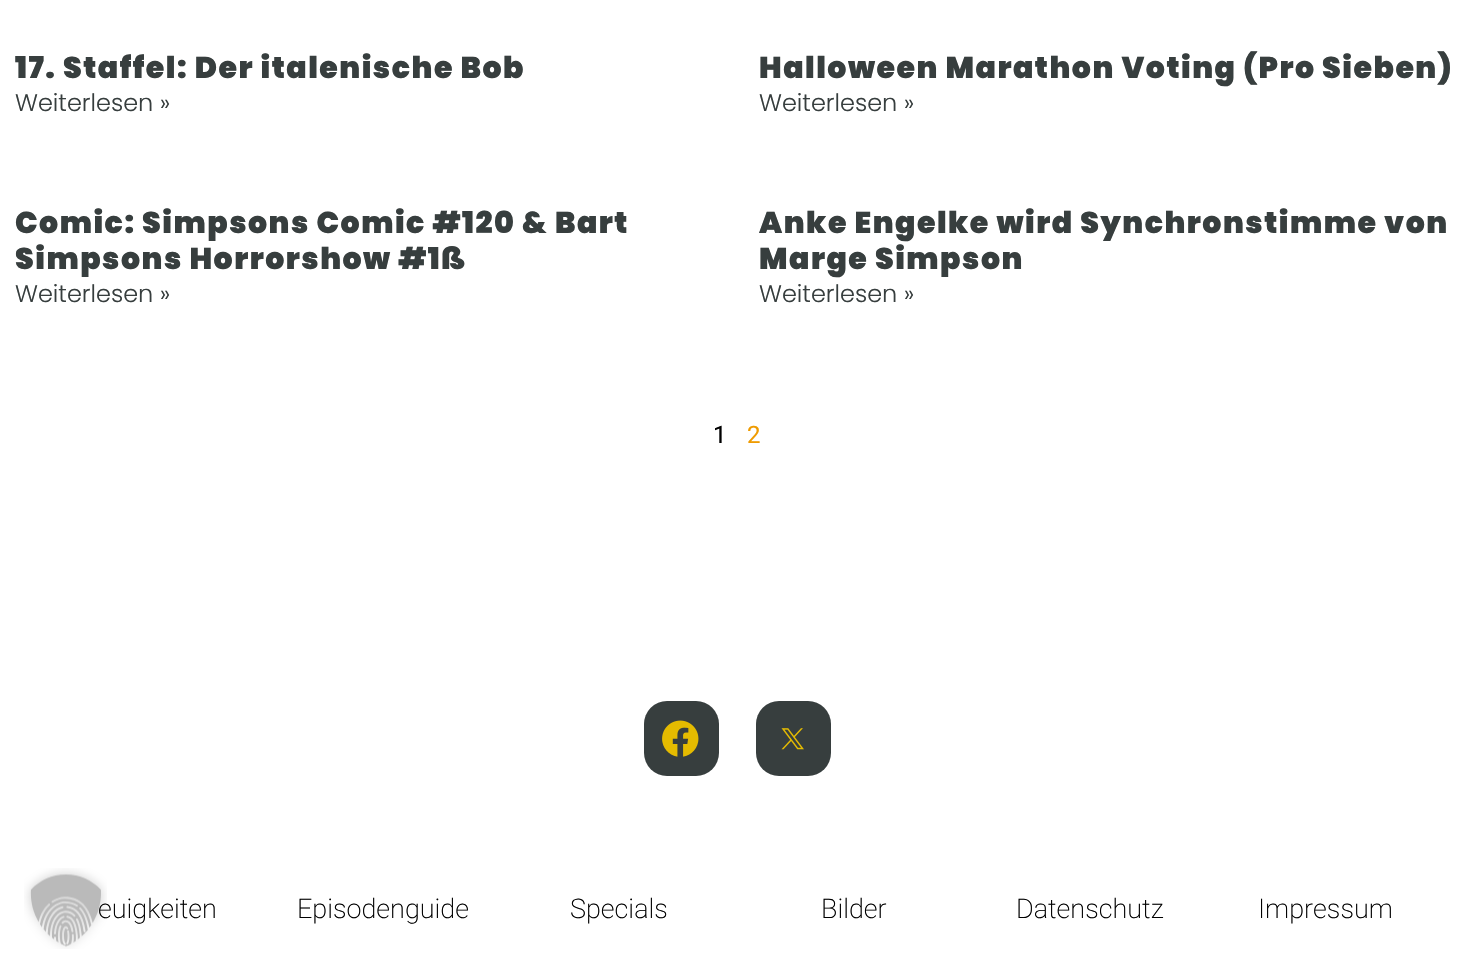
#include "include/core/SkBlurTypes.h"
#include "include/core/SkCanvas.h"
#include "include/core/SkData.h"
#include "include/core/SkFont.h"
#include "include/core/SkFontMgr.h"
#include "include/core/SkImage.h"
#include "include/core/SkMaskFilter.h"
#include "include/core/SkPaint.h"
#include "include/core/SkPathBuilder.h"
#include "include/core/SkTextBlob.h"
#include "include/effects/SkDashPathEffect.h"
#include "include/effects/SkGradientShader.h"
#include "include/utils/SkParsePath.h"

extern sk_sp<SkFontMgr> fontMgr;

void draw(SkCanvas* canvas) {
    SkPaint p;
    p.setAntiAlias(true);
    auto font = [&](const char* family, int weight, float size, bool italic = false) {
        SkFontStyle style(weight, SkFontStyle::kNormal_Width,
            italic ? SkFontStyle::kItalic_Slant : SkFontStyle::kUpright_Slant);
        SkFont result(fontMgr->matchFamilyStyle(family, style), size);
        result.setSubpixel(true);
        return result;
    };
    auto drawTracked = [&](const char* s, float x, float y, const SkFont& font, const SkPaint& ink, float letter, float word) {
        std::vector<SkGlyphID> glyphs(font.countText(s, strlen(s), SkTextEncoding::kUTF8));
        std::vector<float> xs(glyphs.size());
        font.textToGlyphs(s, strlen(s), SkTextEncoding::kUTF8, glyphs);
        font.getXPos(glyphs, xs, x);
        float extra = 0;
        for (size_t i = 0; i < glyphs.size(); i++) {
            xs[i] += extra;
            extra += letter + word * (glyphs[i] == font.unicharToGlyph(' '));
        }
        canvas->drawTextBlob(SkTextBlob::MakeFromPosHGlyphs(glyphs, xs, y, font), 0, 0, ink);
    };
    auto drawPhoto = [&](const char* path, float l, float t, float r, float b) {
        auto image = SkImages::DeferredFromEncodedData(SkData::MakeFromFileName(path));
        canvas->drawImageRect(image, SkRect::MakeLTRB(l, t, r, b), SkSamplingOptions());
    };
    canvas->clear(0xFFFFFFFF);
    auto font1 = font("Poppins", 900, 30);
    p.setColor(0xFF373E3E);
    drawTracked("17. Staffel: Der italenische Bob", 15, 78, font1, p, 1.5f, 0);
    auto font2 = font("Poppins", 300, 24);
    canvas->drawString("Weiterlesen »", 15, 111, font2, p);
    drawTracked("Halloween Marathon Voting (Pro Sieben)", 759, 78, font1, p, 1.5f, 0);
    canvas->drawString("Weiterlesen »", 759, 111, font2, p);
    drawTracked("Comic: Simpsons Comic #120 & Bart", 15, 233, font1, p, 1.5f, 0);
    drawTracked("Simpsons Horrorshow #1ß", 15, 269, font1, p, 1.5f, 0);
    canvas->drawString("Weiterlesen »", 15, 302, font2, p);
    drawTracked("Anke Engelke wird Synchronstimme von", 759, 233, font1, p, 1.5f, 0);
    drawTracked("Marge Simpson", 759, 269, font1, p, 1.5f, 0);
    canvas->drawString("Weiterlesen »", 759, 302, font2, p);
    auto font3 = font("Roboto", 400, 24);
    p.setColor(0xFF000000);
    canvas->drawString("1", 713, 443, font3, p);
    p.setColor(0xFFEF9B00);
    canvas->drawString("2", 747, 443, font3, p);
    auto font4 = font("Roboto", 200, 27);
    p.setColor(0xFF000000);
    canvas->drawString("euigkeiten", 98, 918, font4, p);
    drawPhoto("media/1.png", 24, 868, 107, 949);
    p.setColor(0xFF373E3E);
    canvas->drawRoundRect(SkRect::MakeLTRB(644, 701, 719, 776), 23, 23, p);
    drawPhoto("media/2.png", 662, 720, 699, 757);
    canvas->drawRoundRect(SkRect::MakeLTRB(756, 701, 831, 776), 23, 23, p);
    drawPhoto("media/3.png", 781, 728, 804, 750);
    p.setColor(0xFF000000);
    {
        const struct { const char* s; float x, y; } items[] = {
            {"Episodenguide", 297, 918},
            {"Specials", 570, 918},
            {"Bilder", 821, 918},
            {"Datenschutz", 1016, 918},
            {"Impressum", 1258, 918},
        };
        for (auto [s, x, y] : items) {
            canvas->drawString(s, x, y, font4, p);
        }
    }
}
